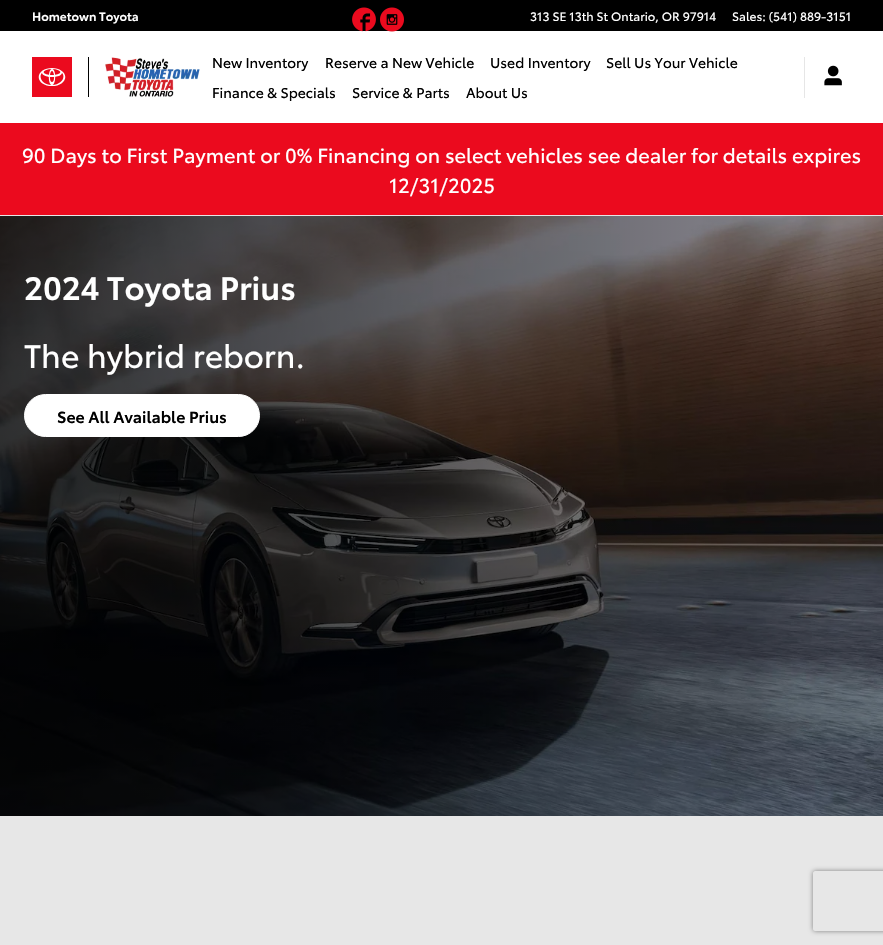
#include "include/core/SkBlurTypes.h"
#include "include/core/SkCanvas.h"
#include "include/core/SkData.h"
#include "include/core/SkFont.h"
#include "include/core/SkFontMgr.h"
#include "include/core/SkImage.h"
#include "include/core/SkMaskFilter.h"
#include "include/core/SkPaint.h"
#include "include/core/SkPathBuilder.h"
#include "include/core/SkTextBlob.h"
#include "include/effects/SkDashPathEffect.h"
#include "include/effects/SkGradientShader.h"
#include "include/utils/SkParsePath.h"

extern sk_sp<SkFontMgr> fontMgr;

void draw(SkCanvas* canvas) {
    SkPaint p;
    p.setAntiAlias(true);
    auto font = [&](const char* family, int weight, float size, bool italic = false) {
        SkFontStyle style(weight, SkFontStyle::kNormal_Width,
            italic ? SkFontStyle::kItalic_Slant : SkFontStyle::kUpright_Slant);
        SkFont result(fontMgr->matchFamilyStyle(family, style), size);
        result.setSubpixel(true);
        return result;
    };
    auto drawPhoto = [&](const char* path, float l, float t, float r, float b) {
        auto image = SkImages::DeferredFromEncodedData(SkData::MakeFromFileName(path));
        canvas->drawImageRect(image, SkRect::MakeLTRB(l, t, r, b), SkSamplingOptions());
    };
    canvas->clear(0xFFFFFFFF);
    p.setColor(0xFFE6E6E6);
    canvas->drawRect(SkRect::MakeLTRB(0, 215, 883, 216), p);
    p.setColor(0xFF000000);
    canvas->drawRect(SkRect::MakeLTRB(0, 0, 883, 31), p);
    auto font1 = font("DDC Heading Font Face", 600, 12);
    p.setColor(0xFFFFFFFF);
    canvas->drawString("Hometown Toyota", 32, 21, font1, p);
    auto font2 = font("DDC Heading Font Face", 400, 12);
    canvas->drawString("313 SE 13th St Ontario, OR 97914", 530, 21, font2, p);
    canvas->drawString("Sales: (541) 889-3151", 732, 21, font2, p);
    drawPhoto("media/1.png", 352, 7, 376, 32);
    drawPhoto("media/2.png", 380, 7, 404, 32);
    p.setColor(0xFF000000);
    canvas->drawRect(SkRect::MakeLTRB(88, 57, 89, 97), p);
    drawPhoto("media/3.png", 32, 57, 72, 97);
    drawPhoto("media/4.png", 105, 57, 200, 97);
    auto font3 = font("DDC Heading Font Face", 400, 14);
    {
        const struct { const char* s; float x, y; } items[] = {
            {"New Inventory", 212, 68},
            {"Reserve a New Vehicle", 325, 68},
            {"Used Inventory", 490, 68},
            {"Sell Us Your Vehicle", 606, 68},
            {"Finance & Specials", 212, 98},
            {"Service & Parts", 352, 98},
            {"About Us", 466, 98},
        };
        for (auto [s, x, y] : items) {
            canvas->drawString(s, x, y, font3, p);
        }
    }
    p.setColor(0xFFE6E6E6);
    canvas->drawRect(SkRect::MakeLTRB(804, 57, 805, 98), p);
    drawPhoto("media/5.png", 824, 65, 842, 86);
    p.setColor(0xFFEB0A1E);
    canvas->drawRect(SkRect::MakeLTRB(0, 123, 883, 215), p);
    auto font4 = font("DDC Heading Font Face", 400, 20);
    p.setColor(0xFFFFFFFF);
    canvas->drawString("90 Days to First Payment or 0% Financing on select vehicles see dealer for details expires", 22, 163, font4, p);
    canvas->drawString("12/31/2025", 389, 193, font4, p);
    drawPhoto("media/6.png", 0, 216, 883, 816);
    auto font5 = font("DDC Heading Font Face", 600, 32);
    canvas->drawString("2024 Toyota Prius", 24, 300, font5, p);
    auto font6 = font("DDC Heading Font Face", 400, 32);
    canvas->drawString("The hybrid reborn.", 24, 368, font6, p);
    canvas->drawRoundRect(SkRect::MakeLTRB(24.5f, 394.5f, 259.5f, 436.5f), 21, 21, p);
    p.setStyle(SkPaint::kStroke_Style);
    p.setStrokeWidth(1);
    canvas->drawRoundRect(SkRect::MakeLTRB(24.5f, 394.5f, 259.5f, 436.5f), 21, 21, p);
    auto font7 = font("DDC Heading Font Face", 600, 16);
    p.setStyle(SkPaint::kFill_Style);
    p.setColor(0xFF000000);
    canvas->drawString("See All Available Prius", 57, 423, font7, p);
    p.setColor(0xFFE7E7E7);
    canvas->drawRect(SkRect::MakeLTRB(0, 816, 883, 945), p);
    canvas->save();
    canvas->clipPath(SkPathBuilder(SkPathFillType::kEvenOdd).moveTo(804, 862).lineTo(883, 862).lineTo(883, 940).lineTo(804, 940).close().moveTo(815, 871).lineTo(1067, 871).cubicTo(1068, 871, 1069, 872, 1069, 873).lineTo(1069, 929).cubicTo(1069, 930, 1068, 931, 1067, 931).lineTo(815, 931).cubicTo(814, 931, 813, 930, 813, 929).lineTo(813, 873).cubicTo(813, 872, 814, 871, 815, 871).close().detach(), true);
    p.setColor(0xFF808080);
    p.setMaskFilter(SkMaskFilter::MakeBlur(kNormal_SkBlurStyle, 2.5f));
    canvas->drawRoundRect(SkRect::MakeLTRB(813, 871, 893, 931), 2, 2, p);
    p.setMaskFilter(nullptr);
    canvas->restore();
}
